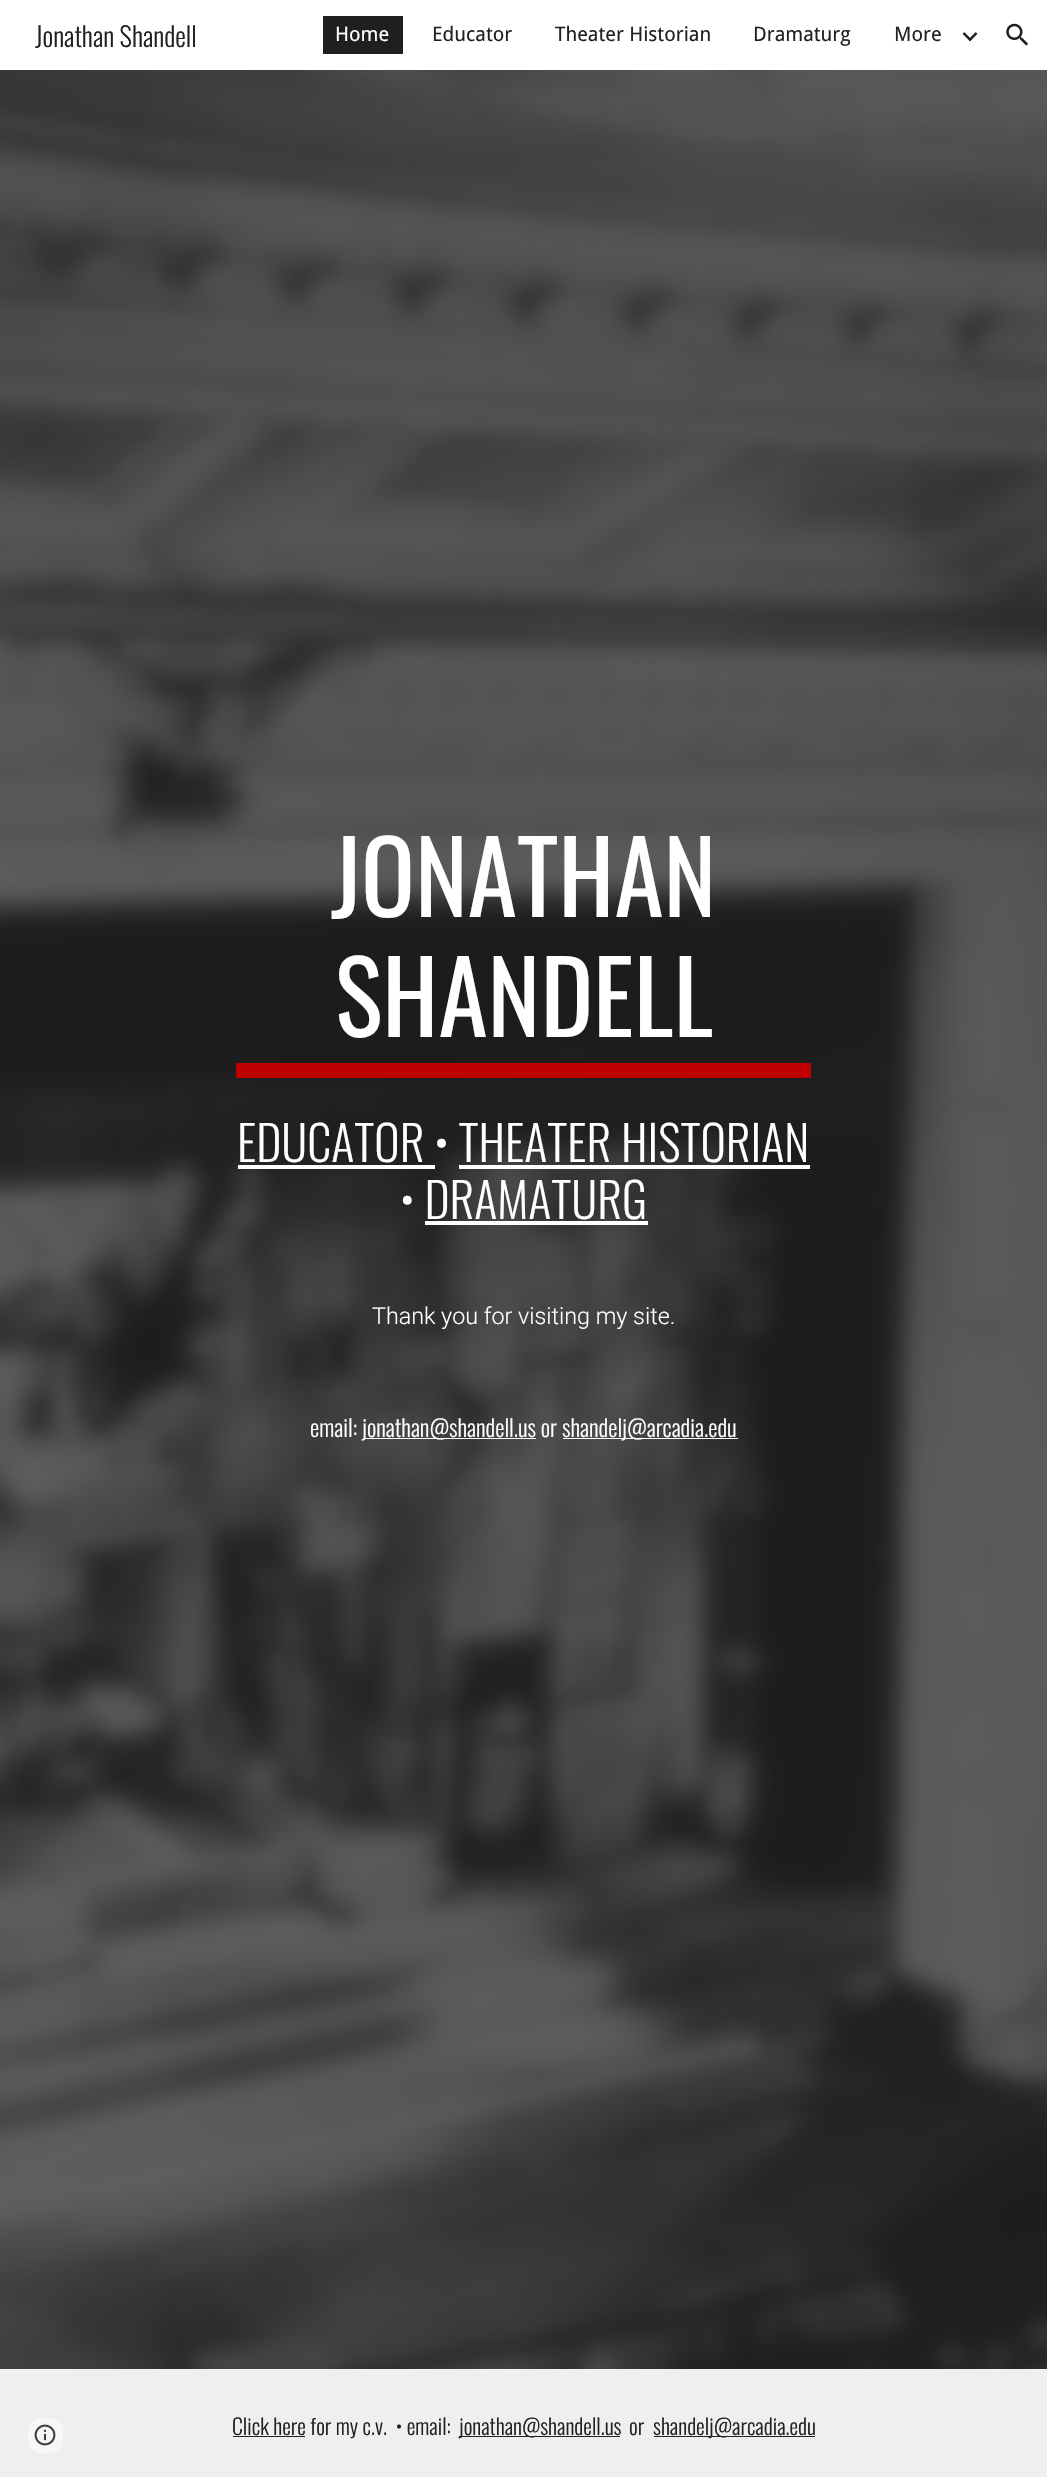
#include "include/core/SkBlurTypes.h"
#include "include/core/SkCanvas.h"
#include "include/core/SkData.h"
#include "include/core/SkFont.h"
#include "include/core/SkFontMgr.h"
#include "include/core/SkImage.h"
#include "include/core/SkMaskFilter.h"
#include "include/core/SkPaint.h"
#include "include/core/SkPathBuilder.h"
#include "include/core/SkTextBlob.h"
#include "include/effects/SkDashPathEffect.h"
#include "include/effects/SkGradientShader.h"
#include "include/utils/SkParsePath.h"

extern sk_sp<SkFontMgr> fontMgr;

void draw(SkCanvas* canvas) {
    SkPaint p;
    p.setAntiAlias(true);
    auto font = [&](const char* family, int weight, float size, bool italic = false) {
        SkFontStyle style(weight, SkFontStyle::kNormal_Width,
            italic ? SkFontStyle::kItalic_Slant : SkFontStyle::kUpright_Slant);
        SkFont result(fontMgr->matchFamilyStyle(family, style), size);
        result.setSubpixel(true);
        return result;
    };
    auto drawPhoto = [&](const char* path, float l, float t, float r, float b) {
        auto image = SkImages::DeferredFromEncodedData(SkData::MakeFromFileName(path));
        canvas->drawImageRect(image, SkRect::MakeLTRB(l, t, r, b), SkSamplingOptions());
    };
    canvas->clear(0xFFFFFFFF);
    auto font1 = font("Oswald", 300, 26.75f);
    p.setColor(0xFF212121);
    canvas->drawString("Jonathan Shandell", 35, 47, font1, p);
    p.setColor(0xFF1F1F1F);
    canvas->drawRect(SkRect::MakeLTRB(323, 16, 403, 54), p);
    auto font2 = font("Droid Sans", 400, 20);
    p.setColor(0xFFFFFFFF);
    canvas->drawString("Home", 335, 41, font2, p);
    p.setColor(0xFF212121);
    {
        const struct { const char* s; float x, y; } items[] = {
            {"Educator", 432, 41},
            {"Theater Historian", 555, 41},
            {"Dramaturg", 753, 41},
            {"More", 894, 41},
        };
        for (auto [s, x, y] : items) {
            canvas->drawString(s, x, y, font2, p);
        }
    }
    drawPhoto("media/1.png", 962, 32, 978, 42);
    drawPhoto("media/2.png", 1006, 23, 1028, 46);
    drawPhoto("media/3.png", 0, 70, 1047, 2369);
    auto font3 = font("Oswald", 400, 100);
    p.setColor(0xFFFFFFFF);
    canvas->drawString("JONATHAN", 331, 917, font3, p);
    canvas->drawString("SHANDELL", 335, 1037, font3, p);
    p.setColor(0xFFBE0000);
    canvas->drawRect(SkRect::MakeLTRB(236, 1063, 811, 1078), p);
    auto font4 = font("Oswald", 300, 48.25f);
    p.setColor(0xFFFFFFFF);
    canvas->drawString("EDUCATOR • THEATER HISTORIAN", 237, 1162, font4, p);
    canvas->drawRect(SkRect::MakeLTRB(238, 1165, 435, 1169), p);
    canvas->drawRect(SkRect::MakeLTRB(459, 1165, 810, 1169), p);
    canvas->drawString("• DRAMATURG", 400, 1219, font4, p);
    canvas->drawRect(SkRect::MakeLTRB(425, 1221, 648, 1225), p);
    auto font5 = font("Roboto", 300, 23.3f);
    canvas->drawString("Thank you for visiting my site.", 372, 1324, font5, p);
    auto font6 = font("Oswald", 300, 23.3f);
    canvas->drawString("email:", 310, 1437, font6, p);
    canvas->drawRect(SkRect::MakeLTRB(363, 1438, 536, 1439), p);
    canvas->drawString("jonathan@shandell.us or", 362, 1437, font6, p);
    canvas->drawRect(SkRect::MakeLTRB(563, 1438, 738, 1439), p);
    canvas->drawString("shandelj@arcadia.edu", 562, 1437, font6, p);
    p.setColor(0xFFEFEFEF);
    canvas->drawRect(SkRect::MakeLTRB(0, 2369, 1047, 2477), p);
    p.setColor(0xFFF7F7F7);
    canvas->drawRoundRect(SkRect::MakeLTRB(28, 2418, 63, 2453), 13, 13, p);
    drawPhoto("media/4.png", 34, 2424, 56, 2446);
    p.setColor(0xFF212121);
    canvas->drawRect(SkRect::MakeLTRB(233, 2436, 305, 2437), p);
    auto font7 = font("Oswald", 300, 21.75f);
    canvas->drawString("Click here for my c.v.  • email:", 232, 2435, font7, p);
    canvas->drawRect(SkRect::MakeLTRB(459, 2436, 620, 2437), p);
    canvas->drawString("jonathan@shandell.us", 459, 2435, font7, p);
    canvas->drawString("or", 629, 2435, font7, p);
    canvas->drawRect(SkRect::MakeLTRB(654, 2436, 815, 2437), p);
    canvas->drawString("shandelj@arcadia.edu", 653, 2435, font7, p);
}
